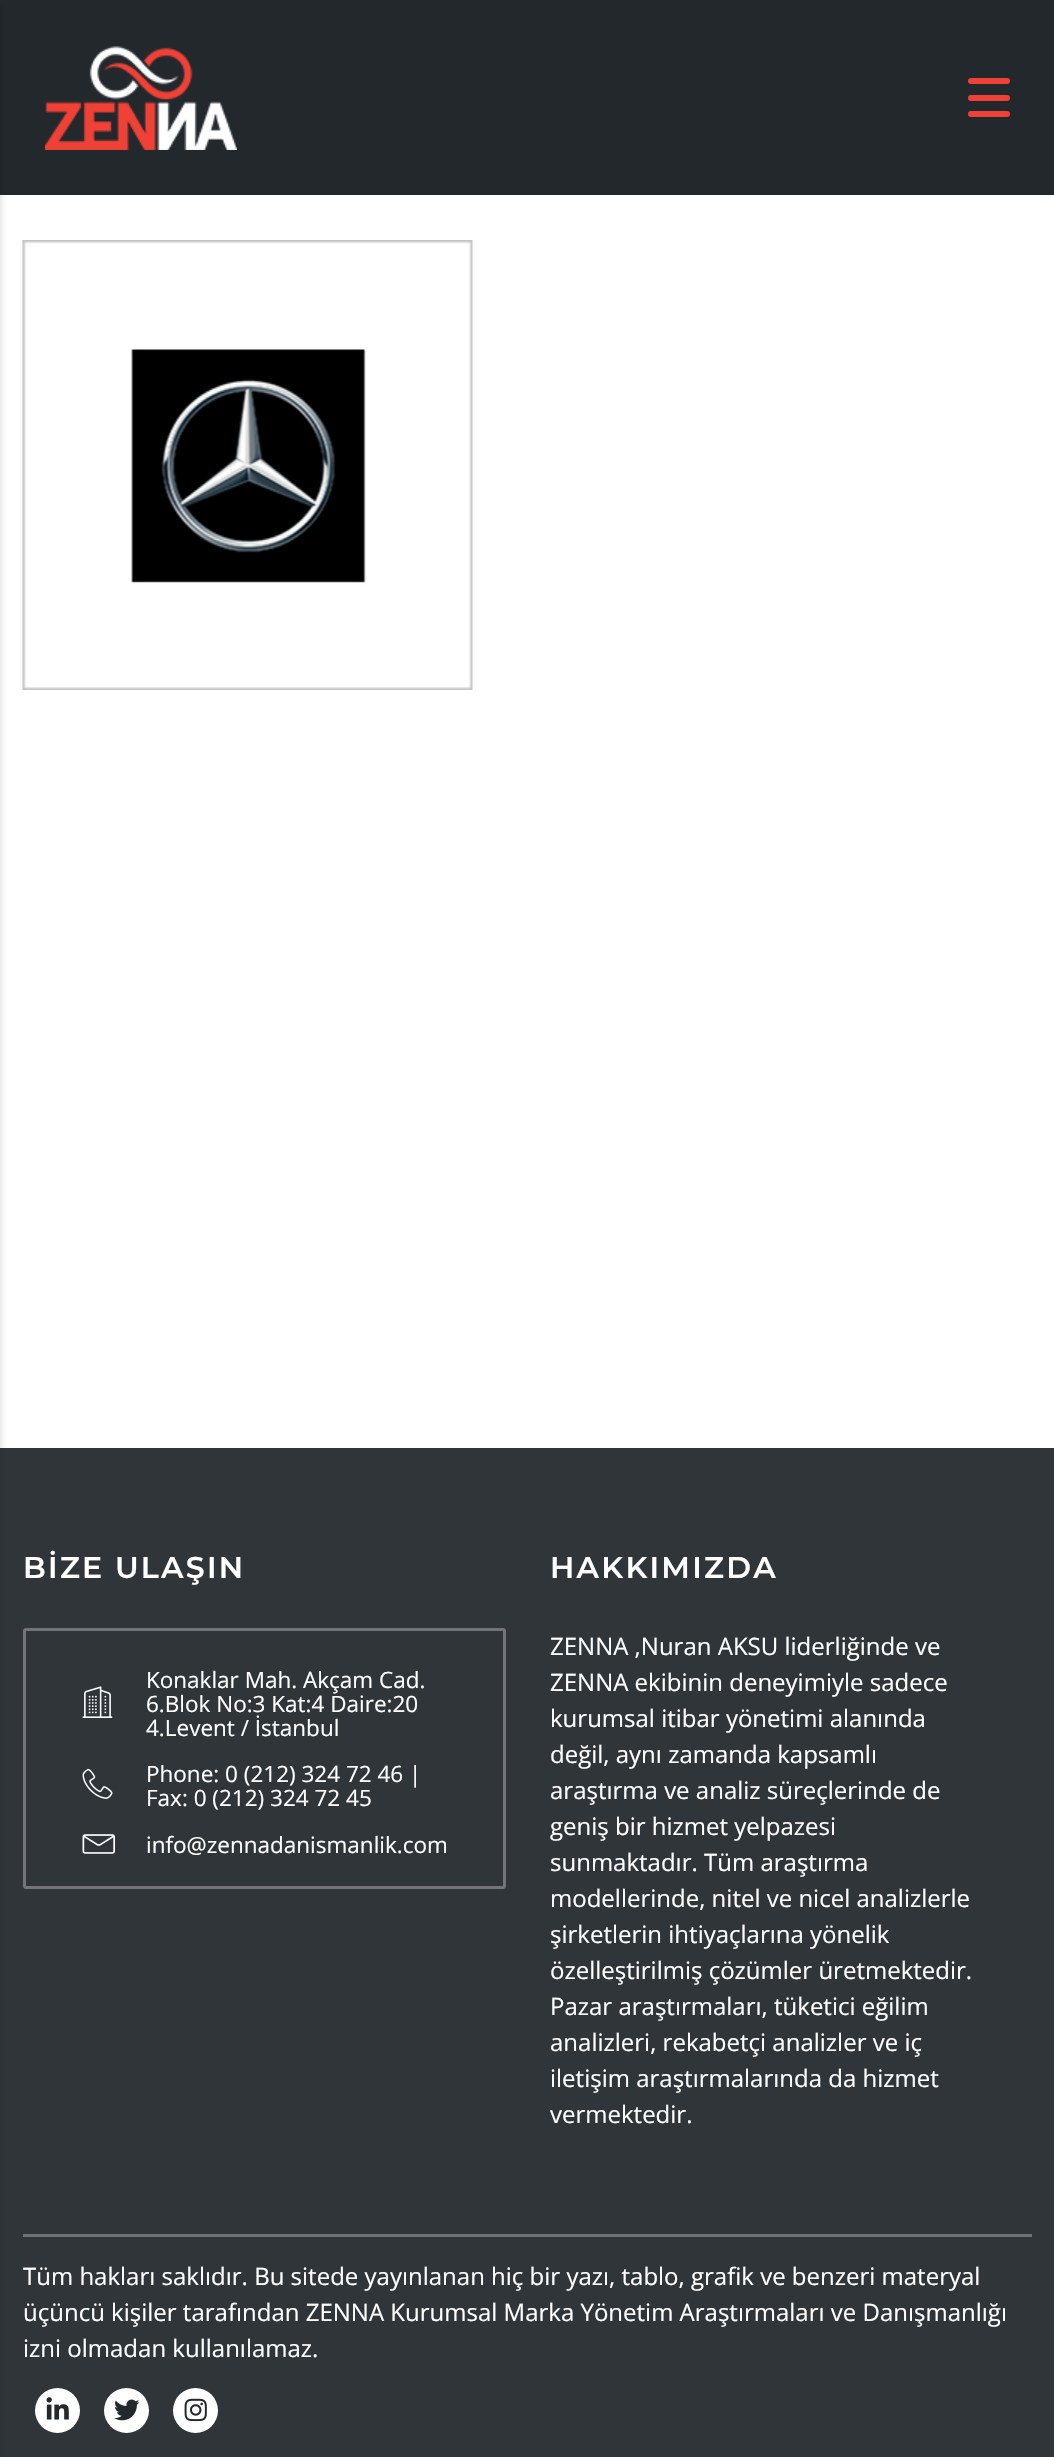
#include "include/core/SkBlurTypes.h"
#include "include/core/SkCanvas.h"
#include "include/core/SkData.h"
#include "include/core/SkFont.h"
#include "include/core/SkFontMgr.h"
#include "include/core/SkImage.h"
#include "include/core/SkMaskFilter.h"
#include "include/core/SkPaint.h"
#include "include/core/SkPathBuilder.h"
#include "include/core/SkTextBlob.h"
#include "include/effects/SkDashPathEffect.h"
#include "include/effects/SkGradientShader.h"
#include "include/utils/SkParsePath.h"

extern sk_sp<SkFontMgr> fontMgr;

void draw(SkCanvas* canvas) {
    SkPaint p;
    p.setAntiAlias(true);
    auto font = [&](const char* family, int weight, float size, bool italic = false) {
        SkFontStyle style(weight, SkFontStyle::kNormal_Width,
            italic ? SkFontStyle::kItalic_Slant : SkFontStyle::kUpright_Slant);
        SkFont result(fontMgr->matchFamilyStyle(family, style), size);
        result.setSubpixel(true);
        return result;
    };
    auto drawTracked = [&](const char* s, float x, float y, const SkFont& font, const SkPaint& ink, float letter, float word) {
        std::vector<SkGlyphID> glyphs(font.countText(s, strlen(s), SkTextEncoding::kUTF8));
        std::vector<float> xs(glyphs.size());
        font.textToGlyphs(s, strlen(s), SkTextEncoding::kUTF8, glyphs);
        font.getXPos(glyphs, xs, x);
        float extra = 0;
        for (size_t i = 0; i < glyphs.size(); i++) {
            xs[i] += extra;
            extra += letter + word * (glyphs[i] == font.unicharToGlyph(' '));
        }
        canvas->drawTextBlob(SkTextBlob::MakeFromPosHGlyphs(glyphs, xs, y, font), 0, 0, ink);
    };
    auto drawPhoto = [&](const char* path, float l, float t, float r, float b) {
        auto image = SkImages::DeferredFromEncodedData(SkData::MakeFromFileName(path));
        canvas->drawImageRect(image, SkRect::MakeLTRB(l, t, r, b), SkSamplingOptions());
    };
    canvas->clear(0xFFFFFFFF);
    p.setColor(0xFF23282D);
    canvas->drawRect(SkRect::MakeLTRB(0, 0, 1054, 195), p);
    drawPhoto("media/1.png", 45, 46, 237, 150);
    p.setColor(0xFFEF4136);
    canvas->drawRoundRect(SkRect::MakeLTRB(968, 78, 1010, 84), 3, 3, p);
    canvas->drawRoundRect(SkRect::MakeLTRB(968, 95, 1010, 101), 3, 3, p);
    canvas->drawRoundRect(SkRect::MakeLTRB(968, 111, 1010, 117), 3, 3, p);
    p.setColor(0xFF30353A);
    canvas->drawRect(SkRect::MakeLTRB(0, 1448, 1054, 2457), p);
    p.setColor(0x33000000);
    p.setMaskFilter(SkMaskFilter::MakeBlur(kNormal_SkBlurStyle, 4));
    canvas->drawRect(SkRect::MakeLTRB(-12, 5, -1, 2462), p);
    p.setMaskFilter(nullptr);
    drawPhoto("media/2.png", 22, 240, 473, 690);
    auto font1 = font("Montserrat", 600, 30);
    p.setColor(0xFFFFFFFF);
    drawTracked("BİZE ULAŞIN", 23, 1578, font1, p, 2.25f, 0);
    p.setStyle(SkPaint::kStroke_Style);
    p.setStrokeWidth(3);
    p.setColor(0xFF737478);
    canvas->drawRoundRect(SkRect::MakeLTRB(24.5f, 1629.5f, 504.5f, 1887.5f), 1.5f, 1.5f, p);
    drawPhoto("media/3.png", 82, 1686, 113, 1718);
    auto font2 = font("Open Sans", 400, 22.5f);
    p.setStyle(SkPaint::kFill_Style);
    p.setColor(0xFFFFFFFF);
    {
        const struct { const char* s; float x, y; } items[] = {
            {"Konaklar Mah. Akçam Cad.", 146, 1688},
            {"6.Blok No:3 Kat:4 Daire:20", 146, 1712},
            {"4.Levent / İstanbul", 146, 1736},
        };
        for (auto [s, x, y] : items) {
            canvas->drawString(s, x, y, font2, p);
        }
    }
    drawPhoto("media/4.png", 82, 1768, 113, 1799);
    canvas->drawString("Phone: 0 (212) 324 72 46 |", 146, 1782, font2, p);
    canvas->drawString("Fax: 0 (212) 324 72 45", 146, 1806, font2, p);
    drawPhoto("media/5.png", 82, 1834, 115, 1854);
    canvas->drawString("info@zennadanismanlik.com", 146, 1853, font2, p);
    drawTracked("HAKKIMIZDA", 550, 1578, font1, p, 2.25f, 0);
    auto font3 = font("Open Sans", 400, 24);
    {
        const struct { const char* s; float x, y; } items[] = {
            {"ZENNA ,Nuran AKSU liderliğinde ve", 550, 1655},
            {"ZENNA ekibinin deneyimiyle sadece", 550, 1691},
            {"kurumsal itibar yönetimi alanında", 550, 1727},
            {"değil, aynı zamanda kapsamlı", 550, 1763},
            {"araştırma ve analiz süreçlerinde de", 550, 1799},
            {"geniş bir hizmet yelpazesi", 550, 1835},
            {"sunmaktadır. Tüm araştırma", 550, 1871},
            {"modellerinde, nitel ve nicel analizlerle", 550, 1907},
            {"şirketlerin ihtiyaçlarına yönelik", 550, 1943},
            {"özelleştirilmiş çözümler üretmektedir.", 550, 1979},
            {"Pazar araştırmaları, tüketici eğilim", 550, 2015},
            {"analizleri, rekabetçi analizler ve iç", 550, 2051},
            {"iletişim araştırmalarında da hizmet", 550, 2087},
            {"vermektedir.", 550, 2123},
        };
        for (auto [s, x, y] : items) {
            canvas->drawString(s, x, y, font3, p);
        }
    }
    p.setColor(0xFF6E7275);
    canvas->drawRect(SkRect::MakeLTRB(23, 2234, 1032, 2237), p);
    p.setColor(0xFFFFFFFF);
    {
        const struct { const char* s; float x, y; } items[] = {
            {"Tüm hakları saklıdır. Bu sitede yayınlanan hiç bir yazı, tablo, grafik ve benzeri materyal", 23, 2285},
            {"üçüncü kişiler tarafından ZENNA Kurumsal Marka Yönetim Araştırmaları ve Danışmanlığı", 23, 2321},
            {"izni olmadan kullanılamaz.", 23, 2357},
        };
        for (auto [s, x, y] : items) {
            canvas->drawString(s, x, y, font3, p);
        }
    }
    canvas->drawCircle(57.5f, 2410.5f, 22.5f, p);
    drawPhoto("media/6.png", 46, 2397, 69, 2420);
    canvas->drawCircle(126.5f, 2410.5f, 22.5f, p);
    drawPhoto("media/7.png", 114, 2399, 140, 2421);
    canvas->drawCircle(195.5f, 2410.5f, 22.5f, p);
    drawPhoto("media/8.png", 184, 2398, 207, 2422);
}
